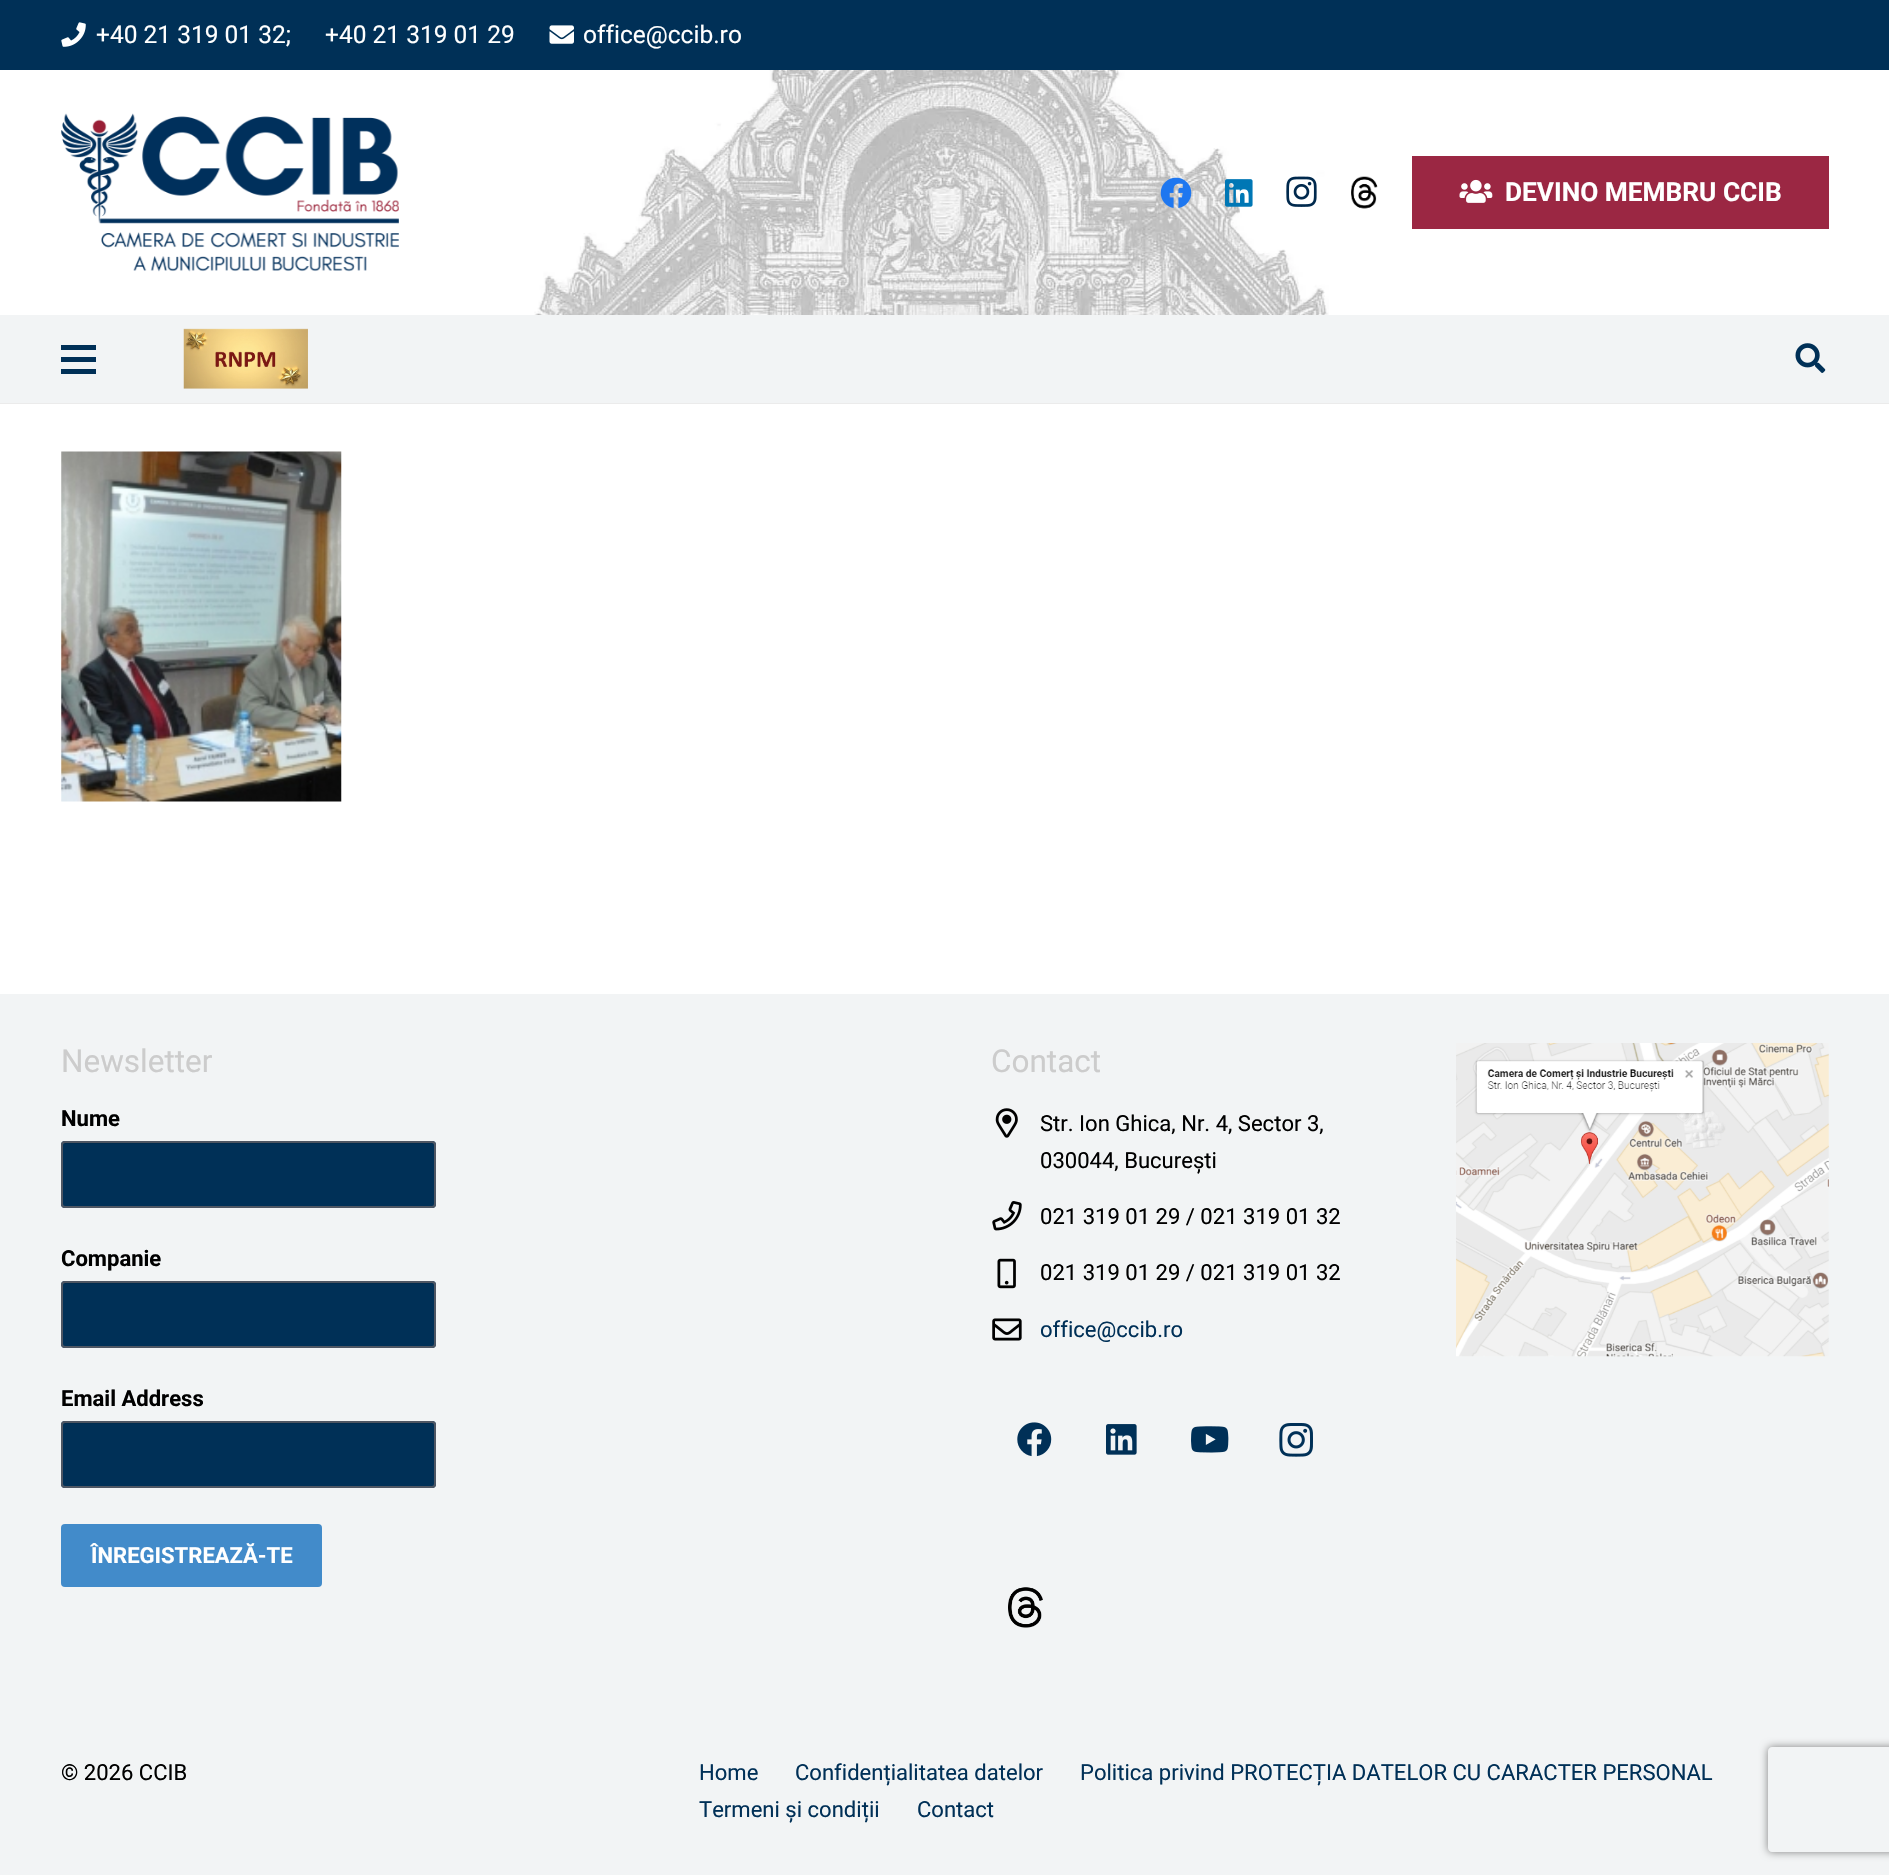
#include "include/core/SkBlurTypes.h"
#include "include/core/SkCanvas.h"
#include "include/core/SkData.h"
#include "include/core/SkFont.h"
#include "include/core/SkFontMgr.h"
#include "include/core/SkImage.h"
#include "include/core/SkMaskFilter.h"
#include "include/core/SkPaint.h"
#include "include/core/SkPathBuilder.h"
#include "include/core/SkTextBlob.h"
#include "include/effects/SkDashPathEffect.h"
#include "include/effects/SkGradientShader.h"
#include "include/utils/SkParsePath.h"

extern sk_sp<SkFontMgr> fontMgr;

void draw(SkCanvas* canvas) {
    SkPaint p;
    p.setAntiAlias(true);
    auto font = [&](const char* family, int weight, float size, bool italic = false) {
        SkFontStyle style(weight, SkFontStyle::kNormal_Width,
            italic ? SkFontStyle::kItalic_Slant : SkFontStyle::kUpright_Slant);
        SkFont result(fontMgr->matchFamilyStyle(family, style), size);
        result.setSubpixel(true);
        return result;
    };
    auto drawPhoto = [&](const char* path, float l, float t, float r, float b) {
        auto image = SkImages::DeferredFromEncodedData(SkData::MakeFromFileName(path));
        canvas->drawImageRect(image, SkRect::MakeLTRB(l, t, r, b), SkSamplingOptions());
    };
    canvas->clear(0xFFFFFFFF);
    p.setColor(0xFF003057);
    canvas->drawRect(SkRect::MakeLTRB(0, 0, 1889, 70), p);
    drawPhoto("media/1.png", 61, 22, 86, 47);
    auto font1 = font("Roboto", 400, 24.5f);
    p.setColor(0xFFFFFFFF);
    canvas->drawString("+40 21 319 01 32;", 96, 43, font1, p);
    canvas->drawString("+40 21 319 01 29", 325, 43, font1, p);
    drawPhoto("media/2.png", 549, 25, 574, 44);
    canvas->drawString("office@ccib.ro", 583, 43, font1, p);
    drawPhoto("media/3.png", 534, 70, 1329, 315);
    drawPhoto("media/4.png", 61, 113, 399, 272);
    drawPhoto("media/5.png", 1160, 177, 1192, 208);
    drawPhoto("media/6.png", 1225, 179, 1253, 207);
    drawPhoto("media/7.png", 1286, 176, 1317, 207);
    drawPhoto("media/8.png", 1351, 176, 1378, 209);
    p.setColor(0xFF9B2743);
    canvas->drawRect(SkRect::MakeLTRB(1412, 156, 1829, 229), p);
    drawPhoto("media/9.png", 1459, 179, 1493, 203);
    auto font2 = font("Roboto", 700, 26.25f);
    p.setColor(0xFFFFFFFF);
    canvas->drawString("DEVINO MEMBRU CCIB", 1505, 201, font2, p);
    {
        const struct { float l, t, r, b; SkColor color; } items[] = {
            {0, 403, 1889, 404, 0xFFEBEBEB},
            {0, 315, 1889, 403, 0xFFF2F4F5},
            {61, 357, 96, 362, 0xFF003057},
            {61, 345, 96, 350, 0xFF003057},
            {61, 369, 96, 374, 0xFF003057},
        };
        for (auto [l, t, r, b, color] : items) {
            p.setColor(color);
            canvas->drawRect(SkRect::MakeLTRB(l, t, r, b), p);
        }
    }
    drawPhoto("media/10.png", 183, 328, 308, 389);
    drawPhoto("media/11.png", 1795, 343, 1826, 373);
    drawPhoto("media/12.png", 61, 451, 342, 802);
    p.setColor(0xFFF2F4F5);
    canvas->drawRect(SkRect::MakeLTRB(0, 994, 1889, 1875), p);
    auto font3 = font("Roboto", 400, 31.5f);
    p.setColor(0xFFCCCCCC);
    canvas->drawString("Newsletter", 61, 1072, font3, p);
    auto font4 = font("Roboto", 700, 22.05f);
    p.setColor(0xFF000000);
    canvas->drawString("Nume", 61, 1126, font4, p);
    p.setColor(0xFF003057);
    canvas->drawRoundRect(SkRect::MakeLTRB(61, 1141, 436, 1208), 4, 4, p);
    p.setColor(0xFF002C50);
    canvas->drawPath(SkPathBuilder().moveTo(65, 1144).lineTo(432, 1144).cubicTo(433, 1144, 434, 1145, 434, 1146).cubicTo(434, 1145, 434, 1143, 432, 1143).lineTo(65, 1143).cubicTo(63, 1143, 63, 1145, 63, 1146).cubicTo(63, 1145, 64, 1144, 65, 1144).close().detach(), p);
    p.setStyle(SkPaint::kStroke_Style);
    p.setStrokeWidth(2);
    p.setColor(0xFF4E5663);
    canvas->drawRoundRect(SkRect::MakeLTRB(62, 1142, 435, 1207), 3, 3, p);
    p.setStyle(SkPaint::kFill_Style);
    p.setColor(0xFF000000);
    canvas->drawString("Companie", 61, 1266, font4, p);
    p.setColor(0xFF003057);
    canvas->drawRoundRect(SkRect::MakeLTRB(61, 1281, 436, 1348), 4, 4, p);
    p.setColor(0xFF002C50);
    canvas->drawPath(SkPathBuilder().moveTo(65, 1284).lineTo(432, 1284).cubicTo(433, 1284, 434, 1285, 434, 1286).cubicTo(434, 1285, 434, 1283, 432, 1283).lineTo(65, 1283).cubicTo(63, 1283, 63, 1285, 63, 1286).cubicTo(63, 1285, 64, 1284, 65, 1284).close().detach(), p);
    p.setStyle(SkPaint::kStroke_Style);
    p.setColor(0xFF4E5663);
    canvas->drawRoundRect(SkRect::MakeLTRB(62, 1282, 435, 1347), 3, 3, p);
    p.setStyle(SkPaint::kFill_Style);
    p.setColor(0xFF000000);
    canvas->drawString("Email Address", 61, 1406, font4, p);
    p.setColor(0xFF003057);
    canvas->drawRoundRect(SkRect::MakeLTRB(61, 1421, 436, 1488), 4, 4, p);
    p.setColor(0xFF002C50);
    canvas->drawPath(SkPathBuilder().moveTo(65, 1424).lineTo(432, 1424).cubicTo(433, 1424, 434, 1425, 434, 1426).cubicTo(434, 1425, 434, 1423, 432, 1423).lineTo(65, 1423).cubicTo(63, 1423, 63, 1425, 63, 1426).cubicTo(63, 1425, 64, 1424, 65, 1424).close().detach(), p);
    p.setStyle(SkPaint::kStroke_Style);
    p.setColor(0xFF4E5663);
    canvas->drawRoundRect(SkRect::MakeLTRB(62, 1422, 435, 1487), 3, 3, p);
    p.setStyle(SkPaint::kFill_Style);
    p.setColor(0xFF428BCA);
    canvas->drawRoundRect(SkRect::MakeLTRB(61, 1524, 322, 1587), 4, 4, p);
    p.setColor(0xFFFFFFFF);
    canvas->drawString("ÎNREGISTREAZĂ-TE", 91, 1563, font4, p);
    p.setColor(0xFFCCCCCC);
    canvas->drawString("Contact", 991, 1072, font3, p);
    drawPhoto("media/13.png", 995, 1108, 1018, 1138);
    auto font5 = font("Roboto", 400, 22.05f);
    p.setColor(0xFF000000);
    canvas->drawString("Str. Ion Ghica, Nr. 4, Sector 3,", 1040, 1131, font5, p);
    canvas->drawString("030044, București", 1040, 1168, font5, p);
    drawPhoto("media/14.png", 992, 1201, 1022, 1231);
    canvas->drawString("021 319 01 29 / 021 319 01 32", 1040, 1224, font5, p);
    drawPhoto("media/15.png", 997, 1258, 1016, 1289);
    canvas->drawString("021 319 01 29 / 021 319 01 32", 1040, 1280, font5, p);
    drawPhoto("media/16.png", 992, 1318, 1022, 1341);
    p.setColor(0xFF003057);
    canvas->drawString("office@ccib.ro", 1040, 1337, font5, p);
    drawPhoto("media/17.png", 1017, 1422, 1052, 1457);
    drawPhoto("media/18.png", 1106, 1424, 1137, 1455);
    drawPhoto("media/19.png", 1191, 1426, 1229, 1453);
    drawPhoto("media/20.png", 1279, 1423, 1313, 1457);
    drawPhoto("media/21.png", 1008, 1587, 1043, 1628);
    drawPhoto("media/22.png", 1456, 1043, 1829, 1357);
    p.setColor(0xFF000000);
    canvas->drawString("© 2026 CCIB", 61, 1780, font5, p);
    p.setColor(0xFF003057);
    {
        const struct { const char* s; float x, y; } items[] = {
            {"Home", 699, 1780},
            {"Confidențialitatea datelor", 795, 1780},
            {"Politica privind PROTECȚIA DATELOR CU CARACTER PERSONAL", 1080, 1780},
            {"Termeni și condiții", 699, 1817},
            {"Contact", 917, 1817},
        };
        for (auto [s, x, y] : items) {
            canvas->drawString(s, x, y, font5, p);
        }
    }
    canvas->save();
    canvas->clipPath(SkPathBuilder(SkPathFillType::kEvenOdd).moveTo(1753, 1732).lineTo(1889, 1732).lineTo(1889, 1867).lineTo(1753, 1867).close().moveTo(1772, 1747).lineTo(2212, 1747).cubicTo(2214, 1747, 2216, 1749, 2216, 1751).lineTo(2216, 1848).cubicTo(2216, 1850, 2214, 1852, 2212, 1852).lineTo(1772, 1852).cubicTo(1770, 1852, 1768, 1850, 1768, 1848).lineTo(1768, 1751).cubicTo(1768, 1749, 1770, 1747, 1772, 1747).close().detach(), true);
    p.setColor(0xFF808080);
    p.setMaskFilter(SkMaskFilter::MakeBlur(kNormal_SkBlurStyle, 4.5f));
    canvas->drawRoundRect(SkRect::MakeLTRB(1768, 1747, 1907, 1852), 4, 4, p);
    p.setMaskFilter(nullptr);
    canvas->restore();
}
